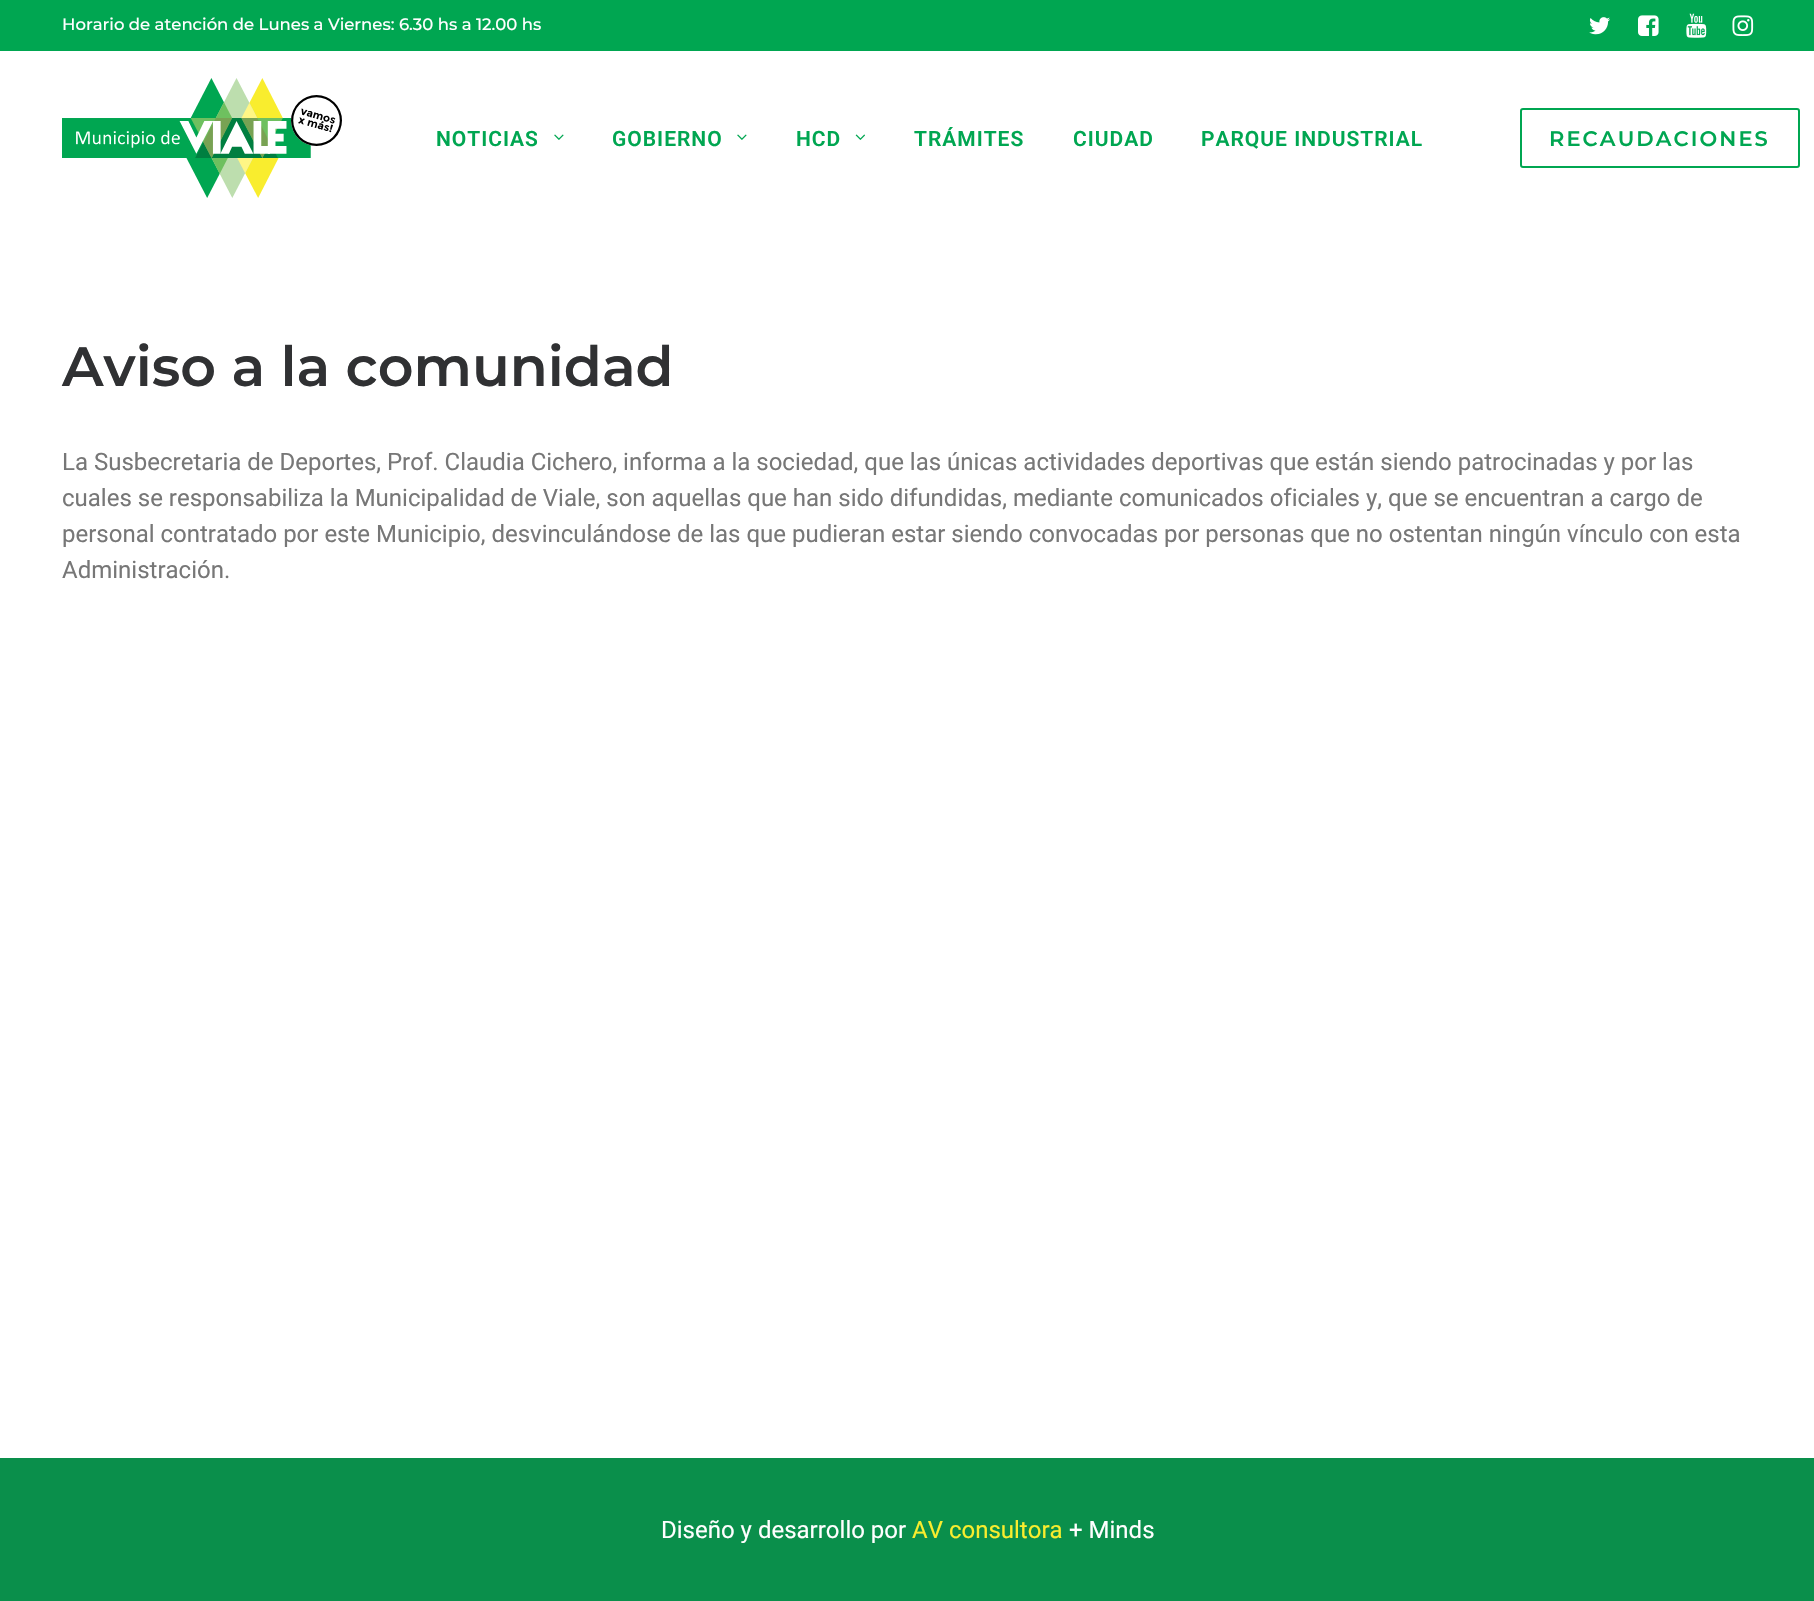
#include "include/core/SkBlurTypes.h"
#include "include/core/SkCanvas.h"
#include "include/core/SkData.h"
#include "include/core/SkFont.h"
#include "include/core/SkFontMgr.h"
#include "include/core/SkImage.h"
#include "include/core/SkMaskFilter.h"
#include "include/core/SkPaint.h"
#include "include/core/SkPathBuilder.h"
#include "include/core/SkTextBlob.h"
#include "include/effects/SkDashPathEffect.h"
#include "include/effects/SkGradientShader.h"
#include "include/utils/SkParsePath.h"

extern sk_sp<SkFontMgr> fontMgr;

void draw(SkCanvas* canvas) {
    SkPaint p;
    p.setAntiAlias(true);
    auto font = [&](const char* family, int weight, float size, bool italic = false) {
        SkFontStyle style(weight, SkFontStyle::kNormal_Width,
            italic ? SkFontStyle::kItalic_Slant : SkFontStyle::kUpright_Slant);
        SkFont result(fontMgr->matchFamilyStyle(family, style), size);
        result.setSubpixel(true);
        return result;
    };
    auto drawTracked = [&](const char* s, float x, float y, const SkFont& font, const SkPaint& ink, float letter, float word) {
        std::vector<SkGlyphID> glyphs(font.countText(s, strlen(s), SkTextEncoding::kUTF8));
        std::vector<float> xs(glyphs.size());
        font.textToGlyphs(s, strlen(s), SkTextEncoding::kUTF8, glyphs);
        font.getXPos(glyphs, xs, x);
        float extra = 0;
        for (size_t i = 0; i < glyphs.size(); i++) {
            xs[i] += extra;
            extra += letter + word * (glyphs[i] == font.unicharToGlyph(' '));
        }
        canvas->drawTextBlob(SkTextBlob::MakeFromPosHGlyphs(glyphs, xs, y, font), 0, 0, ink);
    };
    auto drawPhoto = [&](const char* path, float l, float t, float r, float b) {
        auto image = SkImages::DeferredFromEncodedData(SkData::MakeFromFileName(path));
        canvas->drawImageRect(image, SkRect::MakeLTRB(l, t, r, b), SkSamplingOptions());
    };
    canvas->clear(0xFFFFFFFF);
    p.setColor(0xFF00A651);
    canvas->drawRect(SkRect::MakeLTRB(0, 0, 1814, 51), p);
    auto font1 = font("Montserrat", 500, 16.5f);
    p.setColor(0xFFFFFFFF);
    canvas->drawString("Horario de atención de Lunes a Viernes: 6.30 hs a 12.00 hs", 62, 30, font1, p);
    drawPhoto("media/1.png", 1589, 17, 1610, 35);
    drawPhoto("media/2.png", 1638, 15, 1659, 36);
    drawPhoto("media/3.png", 1686, 13, 1707, 38);
    drawPhoto("media/4.png", 1732, 15, 1754, 36);
    drawPhoto("media/5.png", 62, 78, 342, 198);
    auto font2 = font("Roboto", 600, 21);
    p.setColor(0xFF00A651);
    drawTracked("NOTICIAS", 436, 146, font2, p, 1, 0);
    drawPhoto("media/6.png", 554, 134, 564, 140);
    drawTracked("GOBIERNO", 612, 146, font2, p, 1, 0);
    drawPhoto("media/6.png", 737, 134, 747, 140);
    drawTracked("HCD", 796, 146, font2, p, 1, 0);
    drawPhoto("media/7.png", 855, 134, 865, 140);
    {
        const struct { const char* s; float x, y; } items[] = {
            {"TRÁMITES", 914, 146},
            {"CIUDAD", 1073, 146},
            {"PARQUE INDUSTRIAL", 1201, 146},
        };
        for (auto [s, x, y] : items) {
            drawTracked(s, x, y, font2, p, 1, 0);
        }
    }
    p.setStyle(SkPaint::kStroke_Style);
    p.setStrokeWidth(2);
    canvas->drawRoundRect(SkRect::MakeLTRB(1521, 109, 1799, 167), 2, 2, p);
    auto font3 = font("Montserrat", 600, 21);
    p.setStyle(SkPaint::kFill_Style);
    drawTracked("RECAUDACIONES", 1549, 146, font3, p, 2.1f, 0);
    auto font4 = font("Montserrat", 600, 55.5f);
    p.setColor(0xFF303133);
    canvas->drawString("Aviso a la comunidad", 62, 386, font4, p);
    auto font5 = font("Roboto", 400, 24);
    p.setColor(0xFF777777);
    {
        const struct { const char* s; float x, y; } items[] = {
            {"La Susbecretaria de Deportes, Prof. Claudia Cichero, informa a la sociedad, que las únicas actividades deportivas que están siendo patrocinadas y por las", 62, 470},
            {"cuales se responsabiliza la Municipalidad de Viale, son aquellas que han sido difundidas, mediante comunicados oficiales y, que se encuentran a cargo de", 62, 506},
            {"personal contratado por este Municipio, desvinculándose de las que pudieran estar siendo convocadas por personas que no ostentan ningún vínculo con esta", 62, 542},
            {"Administración.", 62, 578},
        };
        for (auto [s, x, y] : items) {
            canvas->drawString(s, x, y, font5, p);
        }
    }
    p.setColor(0xFF0A8F4B);
    canvas->drawRect(SkRect::MakeLTRB(0, 1458, 1814, 1601), p);
    p.setColor(0xFFFFFFFF);
    canvas->drawString("Diseño y desarrollo por", 661, 1538, font5, p);
    p.setColor(0xFFF9ED2E);
    canvas->drawString("AV consultora", 912, 1538, font5, p);
    p.setColor(0xFFFFFFFF);
    canvas->drawString("+ Minds", 1069, 1538, font5, p);
}
